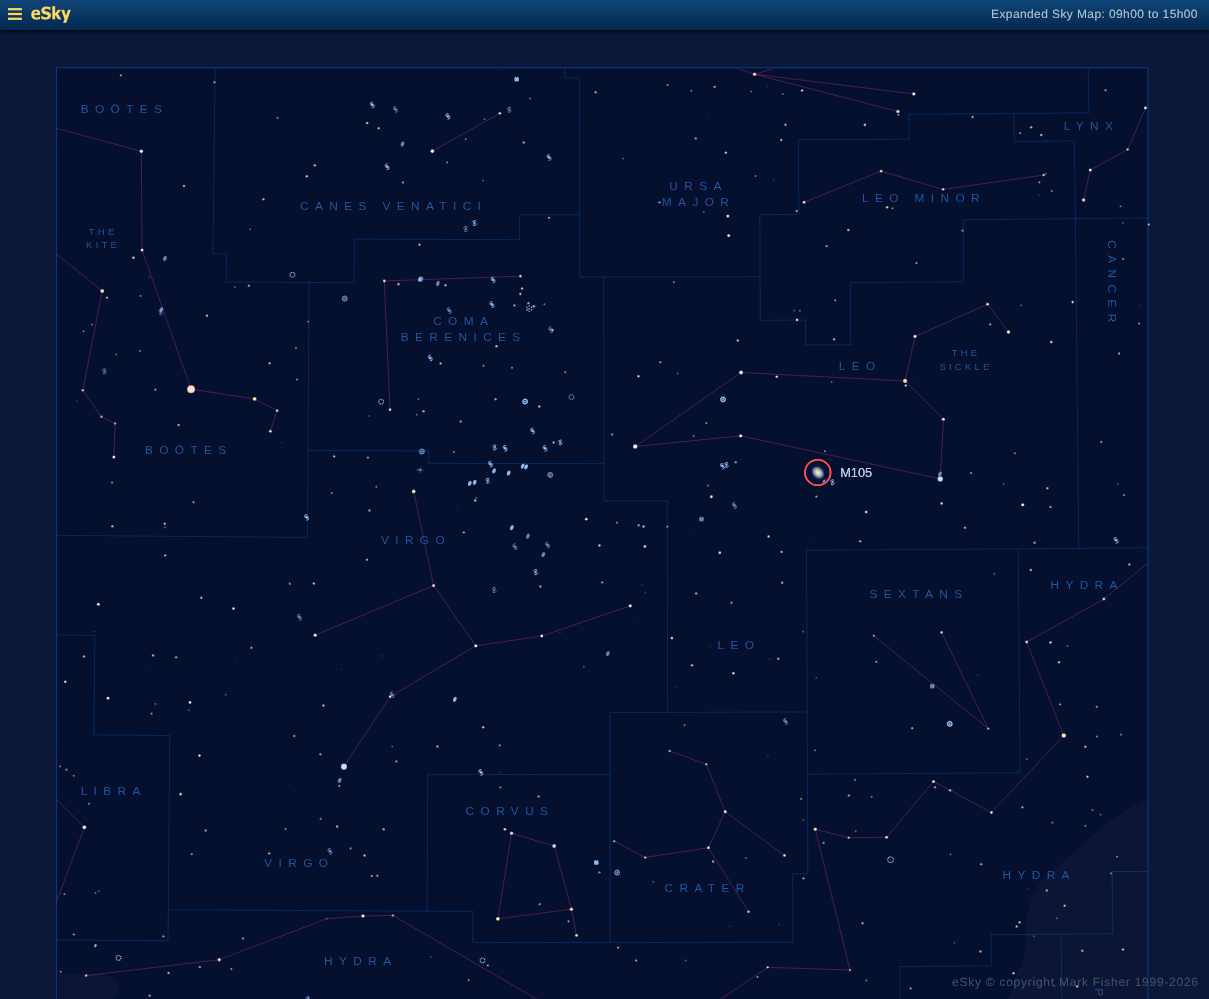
#include "include/core/SkBlurTypes.h"
#include "include/core/SkCanvas.h"
#include "include/core/SkData.h"
#include "include/core/SkFont.h"
#include "include/core/SkFontMgr.h"
#include "include/core/SkImage.h"
#include "include/core/SkMaskFilter.h"
#include "include/core/SkPaint.h"
#include "include/core/SkPathBuilder.h"
#include "include/core/SkTextBlob.h"
#include "include/effects/SkDashPathEffect.h"
#include "include/effects/SkGradientShader.h"
#include "include/utils/SkParsePath.h"

extern sk_sp<SkFontMgr> fontMgr;

void draw(SkCanvas* canvas) {
    SkPaint p;
    p.setAntiAlias(true);
    auto font = [&](const char* family, int weight, float size, bool italic = false) {
        SkFontStyle style(weight, SkFontStyle::kNormal_Width,
            italic ? SkFontStyle::kItalic_Slant : SkFontStyle::kUpright_Slant);
        SkFont result(fontMgr->matchFamilyStyle(family, style), size);
        result.setSubpixel(true);
        return result;
    };
    auto drawTracked = [&](const char* s, float x, float y, const SkFont& font, const SkPaint& ink, float letter, float word) {
        std::vector<SkGlyphID> glyphs(font.countText(s, strlen(s), SkTextEncoding::kUTF8));
        std::vector<float> xs(glyphs.size());
        font.textToGlyphs(s, strlen(s), SkTextEncoding::kUTF8, glyphs);
        font.getXPos(glyphs, xs, x);
        float extra = 0;
        for (size_t i = 0; i < glyphs.size(); i++) {
            xs[i] += extra;
            extra += letter + word * (glyphs[i] == font.unicharToGlyph(' '));
        }
        canvas->drawTextBlob(SkTextBlob::MakeFromPosHGlyphs(glyphs, xs, y, font), 0, 0, ink);
    };
    auto drawPhoto = [&](const char* path, float l, float t, float r, float b) {
        auto image = SkImages::DeferredFromEncodedData(SkData::MakeFromFileName(path));
        canvas->drawImageRect(image, SkRect::MakeLTRB(l, t, r, b), SkSamplingOptions());
    };
    canvas->clear(0xFF0B1839);
    p.setColor(0x80000000);
    p.setMaskFilter(SkMaskFilter::MakeBlur(kNormal_SkBlurStyle, 1.5f));
    canvas->drawRect(SkRect::MakeLTRB(0, 3, 1209, 33), p);
    p.setMaskFilter(nullptr);
    {
        const SkColor colors[] = {0xFF0E4275, 0xFF042B52};
        const float stops[] = {0.1f, 0.9f};
        const SkPoint ends[] = {{0, 0}, {0, 30}};
        p.setShader(SkGradientShader::MakeLinear(ends, colors, stops, 2, SkTileMode::kClamp));
        p.setAlpha(255);
    }
    canvas->drawRect(SkRect::MakeLTRB(0, 0, 1209, 30), p);
    drawPhoto("media/1.png", 8, 8, 22, 20);
    drawPhoto("media/2.png", 31, 6, 71, 23);
    auto font1 = font("Liberation Sans", 400, 12);
    p.setShader(nullptr);
    p.setColor(0xFFB5C3D1);
    drawTracked("Expanded Sky Map: 09h00 to 15h00", 991, 18, font1, p, 0.4f, 0);
    drawPhoto("media/3.png", 56, 67, 1150, 999);
    p.setColor(0xFF3C4F6C);
    drawTracked("eSky © copyright Mark Fisher 1999-2026", 952, 986, font1, p, 0.75f, 0);
}
